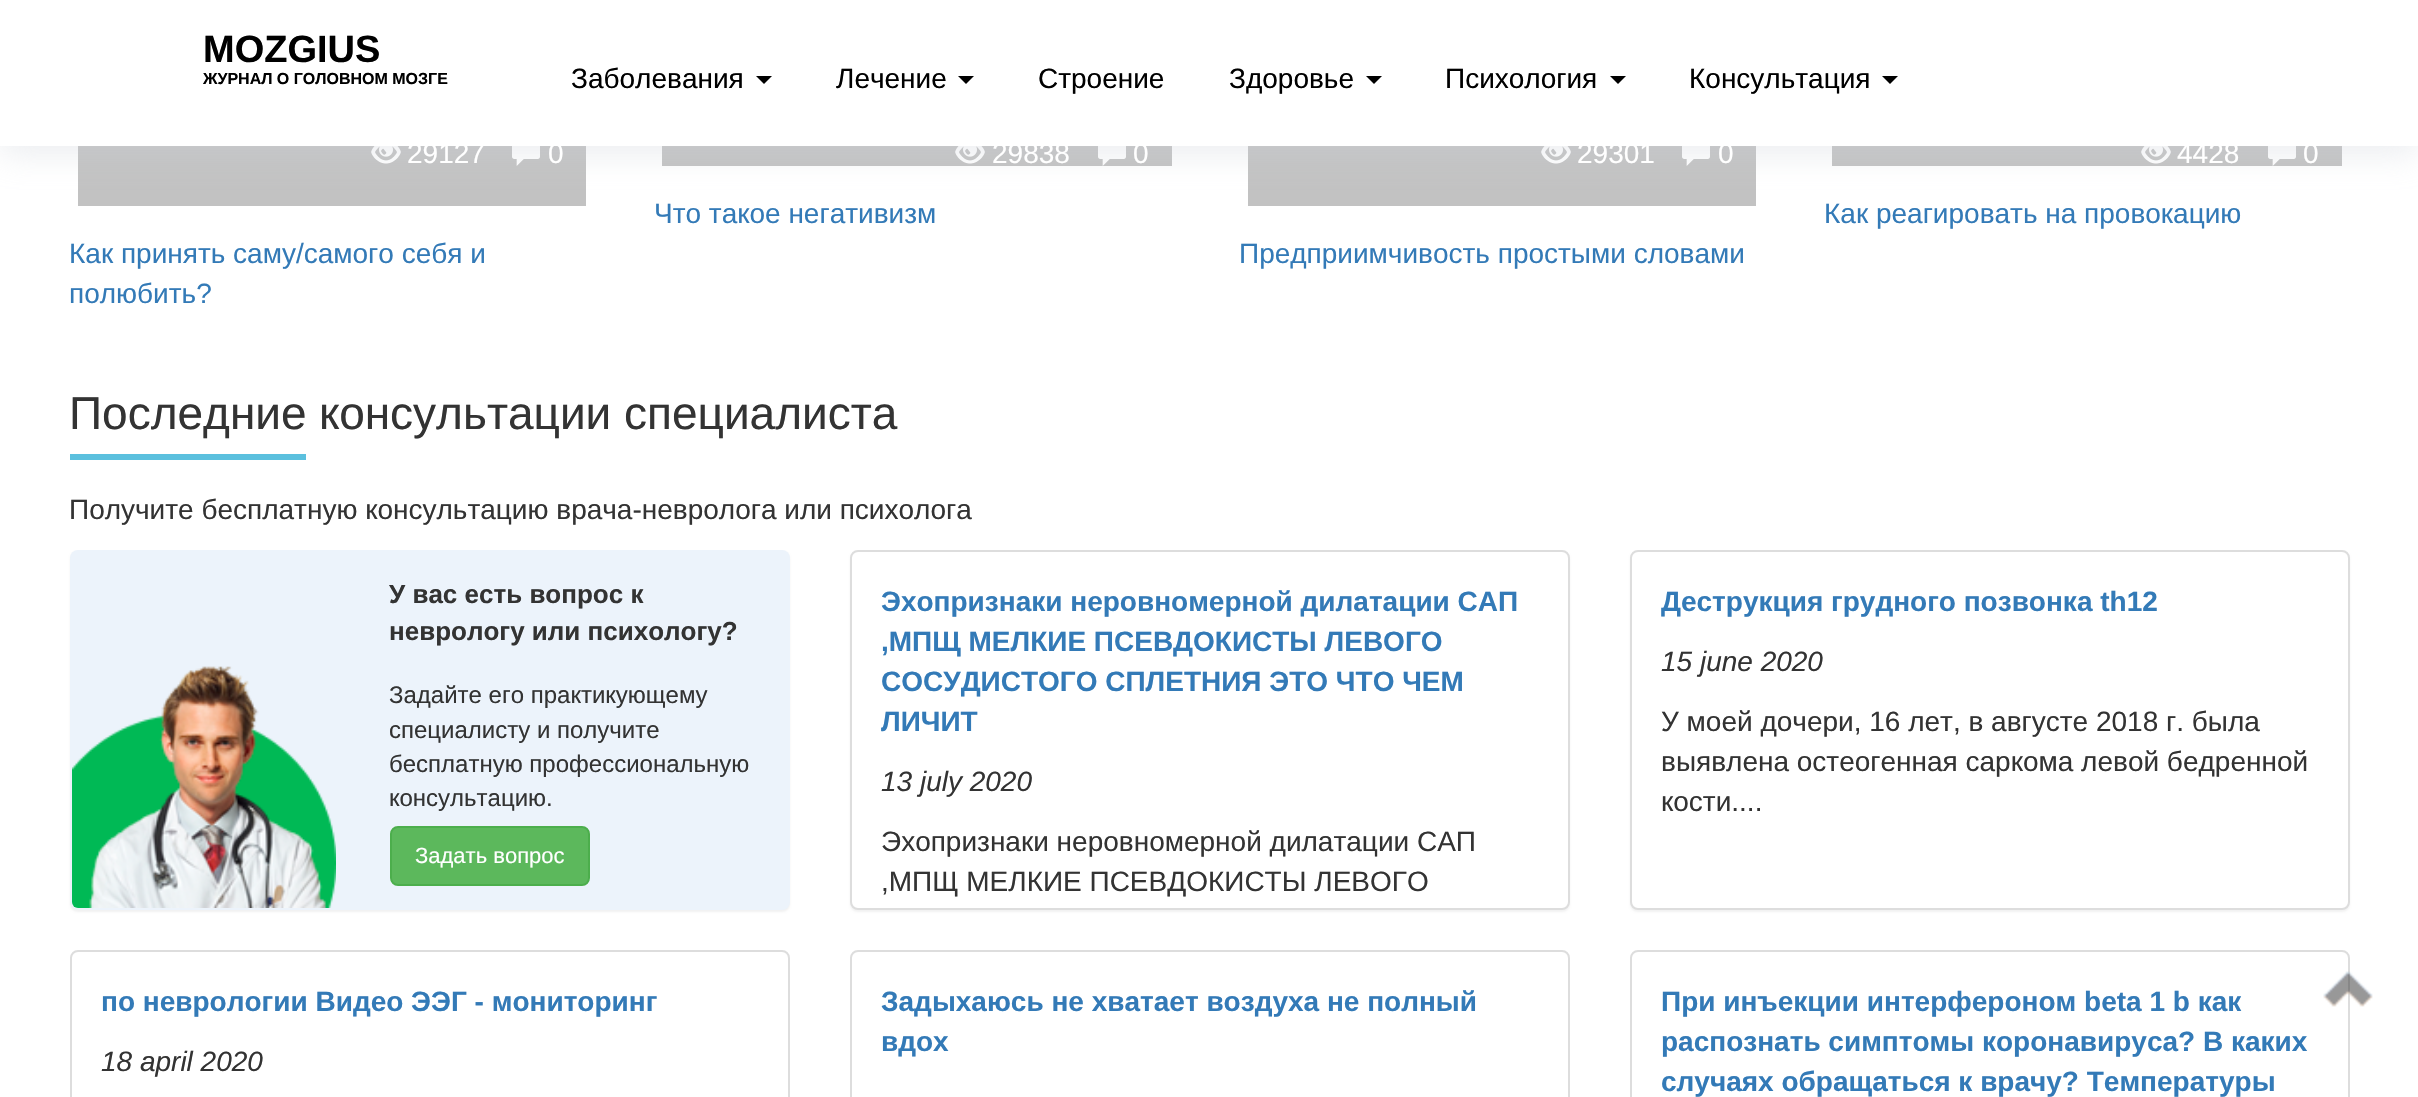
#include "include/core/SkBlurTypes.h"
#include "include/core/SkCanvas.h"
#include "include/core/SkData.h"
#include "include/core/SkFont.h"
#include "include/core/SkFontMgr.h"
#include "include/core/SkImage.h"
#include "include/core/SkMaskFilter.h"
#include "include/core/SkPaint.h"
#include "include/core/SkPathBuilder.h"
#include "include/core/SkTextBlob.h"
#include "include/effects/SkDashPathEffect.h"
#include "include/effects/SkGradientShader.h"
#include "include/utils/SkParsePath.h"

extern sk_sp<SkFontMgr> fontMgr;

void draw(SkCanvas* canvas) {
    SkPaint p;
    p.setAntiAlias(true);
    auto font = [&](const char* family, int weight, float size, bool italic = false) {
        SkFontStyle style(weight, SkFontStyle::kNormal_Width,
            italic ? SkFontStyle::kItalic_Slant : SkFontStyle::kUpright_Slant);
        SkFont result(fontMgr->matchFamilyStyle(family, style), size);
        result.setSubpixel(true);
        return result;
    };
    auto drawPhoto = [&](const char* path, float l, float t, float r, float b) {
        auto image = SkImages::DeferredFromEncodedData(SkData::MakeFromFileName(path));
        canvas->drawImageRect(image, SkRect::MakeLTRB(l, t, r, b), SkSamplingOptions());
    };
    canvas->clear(0xFFFFFFFF);
    p.setColor(0xFFC2C2C2);
    canvas->drawRect(SkRect::MakeLTRB(78, 146, 586, 206), p);
    drawPhoto("media/1.png", 371, 146, 401, 164);
    drawPhoto("media/2.png", 512, 146, 540, 166);
    canvas->drawRect(SkRect::MakeLTRB(662, 146, 1172, 166), p);
    drawPhoto("media/1.png", 955, 146, 985, 164);
    drawPhoto("media/2.png", 1098, 146, 1126, 166);
    canvas->drawRect(SkRect::MakeLTRB(1248, 146, 1756, 206), p);
    drawPhoto("media/1.png", 1541, 146, 1571, 164);
    drawPhoto("media/2.png", 1682, 146, 1710, 166);
    canvas->drawRect(SkRect::MakeLTRB(1832, 146, 2342, 166), p);
    drawPhoto("media/1.png", 2141, 146, 2171, 164);
    drawPhoto("media/2.png", 2268, 146, 2296, 166);
    p.setColor(0x66CDD1DA);
    p.setMaskFilter(SkMaskFilter::MakeBlur(kNormal_SkBlurStyle, 16));
    canvas->drawRect(SkRect::MakeLTRB(0, 8, 2418, 154), p);
    p.setMaskFilter(nullptr);
    p.setColor(0xFFFFFFFF);
    canvas->drawRect(SkRect::MakeLTRB(0, 0, 2418, 146), p);
    auto font1 = font("Liberation Sans", 700, 38);
    p.setColor(0xFF000000);
    canvas->drawString("MOZGIUS", 203, 62, font1, p);
    auto font2 = font("Liberation Sans", 700, 16);
    canvas->drawString("ЖУРНАЛ О ГОЛОВНОМ МОЗГЕ", 203, 84, font2, p);
    auto font3 = font("Liberation Sans", 400, 28);
    canvas->drawString("Заболевания", 571, 88, font3, p);
    canvas->drawPath(SkPathBuilder().moveTo(756, 76).lineTo(772, 76).lineTo(764, 84).close().detach(), p);
    canvas->drawString("Лечение", 836, 88, font3, p);
    canvas->drawPath(SkPathBuilder().moveTo(958, 76).lineTo(974, 76).lineTo(966, 84).close().detach(), p);
    canvas->drawString("Строение", 1038, 88, font3, p);
    canvas->drawString("Здоровье", 1229, 88, font3, p);
    canvas->drawPath(SkPathBuilder().moveTo(1366, 76).lineTo(1382, 76).lineTo(1374, 84).close().detach(), p);
    canvas->drawString("Психология", 1445, 88, font3, p);
    canvas->drawPath(SkPathBuilder().moveTo(1610, 76).lineTo(1626, 76).lineTo(1618, 84).close().detach(), p);
    canvas->drawString("Консультация", 1689, 88, font3, p);
    canvas->drawPath(SkPathBuilder().moveTo(1882, 76).lineTo(1898, 76).lineTo(1890, 84).close().detach(), p);
    p.setColor(0xFFFFFFFF);
    canvas->drawString("29127", 407, 163, font3, p);
    canvas->drawString("0", 548, 163, font3, p);
    p.setColor(0xFF337AB7);
    canvas->drawString("Как принять саму/самого себя и", 69, 263, font3, p);
    canvas->drawString("полюбить?", 69, 303, font3, p);
    p.setColor(0xFFFFFFFF);
    canvas->drawString("29838", 992, 163, font3, p);
    canvas->drawString("0", 1133, 163, font3, p);
    p.setColor(0xFF337AB7);
    canvas->drawString("Что такое негативизм", 654, 223, font3, p);
    p.setColor(0xFFFFFFFF);
    canvas->drawString("29301", 1577, 163, font3, p);
    canvas->drawString("0", 1718, 163, font3, p);
    p.setColor(0xFF337AB7);
    canvas->drawString("Предприимчивость простыми словами", 1239, 263, font3, p);
    p.setColor(0xFFFFFFFF);
    canvas->drawString("4428", 2177, 163, font3, p);
    canvas->drawString("0", 2303, 163, font3, p);
    p.setColor(0xFF337AB7);
    canvas->drawString("Как реагировать на провокацию", 1824, 223, font3, p);
    auto font4 = font("Liberation Sans", 400, 46);
    p.setColor(0xFF333333);
    canvas->drawString("Последние", 69, 429, font4, p);
    p.setColor(0xFF5BC0DE);
    canvas->drawRect(SkRect::MakeLTRB(70, 454, 306, 460), p);
    p.setColor(0xFF333333);
    canvas->drawString("консультации специалиста", 319, 429, font4, p);
    canvas->drawString("Получите бесплатную консультацию врача-невролога или психолога", 69, 519, font3, p);
    p.setColor(0x0D000000);
    p.setMaskFilter(SkMaskFilter::MakeBlur(kNormal_SkBlurStyle, 1));
    canvas->drawRoundRect(SkRect::MakeLTRB(70, 552, 790, 912), 8, 8, p);
    p.setMaskFilter(nullptr);
    p.setColor(0xFFECF3FB);
    canvas->drawRoundRect(SkRect::MakeLTRB(70, 550, 790, 910), 8, 8, p);
    drawPhoto("media/3.png", 72, 666, 336, 908);
    auto font5 = font("Liberation Sans", 700, 26);
    p.setColor(0xFF333333);
    canvas->drawString("У вас есть вопрос к", 389, 603, font5, p);
    canvas->drawString("неврологу или психологу?", 389, 640, font5, p);
    auto font6 = font("Liberation Sans", 400, 24);
    {
        const struct { const char* s; float x, y; } items[] = {
            {"Задайте его практикующему", 389, 703},
            {"специалисту и получите", 389, 738},
            {"бесплатную профессиональную", 389, 772},
            {"консультацию.", 389, 806},
        };
        for (auto [s, x, y] : items) {
            canvas->drawString(s, x, y, font6, p);
        }
    }
    p.setColor(0xFF5CB85C);
    canvas->drawRoundRect(SkRect::MakeLTRB(391, 827, 589, 885), 7, 7, p);
    p.setStyle(SkPaint::kStroke_Style);
    p.setStrokeWidth(2);
    p.setColor(0xFF4CAE4C);
    canvas->drawRoundRect(SkRect::MakeLTRB(391, 827, 589, 885), 7, 7, p);
    auto font7 = font("Liberation Sans", 400, 22);
    p.setStyle(SkPaint::kFill_Style);
    p.setColor(0xFFFFFFFF);
    canvas->drawString("Задать вопрос", 415, 863, font7, p);
    p.setColor(0x0D000000);
    p.setMaskFilter(SkMaskFilter::MakeBlur(kNormal_SkBlurStyle, 1));
    canvas->drawRoundRect(SkRect::MakeLTRB(850, 552, 1570, 912), 8, 8, p);
    p.setMaskFilter(nullptr);
    p.setColor(0xFFFFFFFF);
    canvas->drawRoundRect(SkRect::MakeLTRB(851, 551, 1569, 909), 7, 7, p);
    p.setStyle(SkPaint::kStroke_Style);
    p.setColor(0xFFDDDDDD);
    canvas->drawRoundRect(SkRect::MakeLTRB(851, 551, 1569, 909), 7, 7, p);
    auto font8 = font("Liberation Sans", 700, 28);
    p.setStyle(SkPaint::kFill_Style);
    p.setColor(0xFF337AB7);
    {
        const struct { const char* s; float x, y; } items[] = {
            {"Эхопризнаки неровномерной дилатации САП", 881, 611},
            {",МПЩ МЕЛКИЕ ПСЕВДОКИСТЫ ЛЕВОГО", 881, 651},
            {"СОСУДИСТОГО СПЛЕТНИЯ ЭТО ЧТО ЧЕМ", 881, 691},
            {"ЛИЧИТ", 881, 731},
        };
        for (auto [s, x, y] : items) {
            canvas->drawString(s, x, y, font8, p);
        }
    }
    auto font9 = font("Liberation Sans", 400, 28, true);
    p.setColor(0xFF333333);
    canvas->drawString("13 july 2020", 881, 791, font9, p);
    canvas->drawString("Эхопризнаки неровномерной дилатации САП", 881, 851, font3, p);
    canvas->drawString(",МПЩ МЕЛКИЕ ПСЕВДОКИСТЫ ЛЕВОГО", 881, 891, font3, p);
    p.setColor(0x0D000000);
    p.setMaskFilter(SkMaskFilter::MakeBlur(kNormal_SkBlurStyle, 1));
    canvas->drawRoundRect(SkRect::MakeLTRB(1630, 552, 2350, 912), 8, 8, p);
    p.setMaskFilter(nullptr);
    p.setColor(0xFFFFFFFF);
    canvas->drawRoundRect(SkRect::MakeLTRB(1631, 551, 2349, 909), 7, 7, p);
    p.setStyle(SkPaint::kStroke_Style);
    p.setColor(0xFFDDDDDD);
    canvas->drawRoundRect(SkRect::MakeLTRB(1631, 551, 2349, 909), 7, 7, p);
    p.setStyle(SkPaint::kFill_Style);
    p.setColor(0xFF337AB7);
    canvas->drawString("Деструкция грудного позвонка th12", 1661, 611, font8, p);
    p.setColor(0xFF333333);
    canvas->drawString("15 june 2020", 1661, 671, font9, p);
    {
        const struct { const char* s; float x, y; } items[] = {
            {"У моей дочери, 16 лет, в августе 2018 г. была", 1661, 731},
            {"выявлена остеогенная саркома левой бедренной", 1661, 771},
            {"кости....", 1661, 811},
        };
        for (auto [s, x, y] : items) {
            canvas->drawString(s, x, y, font3, p);
        }
    }
    p.setStyle(SkPaint::kStroke_Style);
    p.setColor(0xFFDDDDDD);
    canvas->drawRoundRect(SkRect::MakeLTRB(71, 951, 789, 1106), 7, 7, p);
    p.setStyle(SkPaint::kFill_Style);
    p.setColor(0xFF337AB7);
    canvas->drawString("по неврологии Видео ЭЭГ - мониторинг", 101, 1011, font8, p);
    p.setColor(0xFF333333);
    canvas->drawString("18 april 2020", 101, 1071, font9, p);
    p.setStyle(SkPaint::kStroke_Style);
    p.setColor(0xFFDDDDDD);
    canvas->drawRoundRect(SkRect::MakeLTRB(851, 951, 1569, 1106), 7, 7, p);
    p.setStyle(SkPaint::kFill_Style);
    p.setColor(0xFF337AB7);
    canvas->drawString("Задыхаюсь не хватает воздуха не полный", 881, 1011, font8, p);
    canvas->drawString("вдох", 881, 1051, font8, p);
    p.setStyle(SkPaint::kStroke_Style);
    p.setColor(0xFFDDDDDD);
    canvas->drawRoundRect(SkRect::MakeLTRB(1631, 951, 2349, 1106), 7, 7, p);
    p.setStyle(SkPaint::kFill_Style);
    p.setColor(0xFF337AB7);
    {
        const struct { const char* s; float x, y; } items[] = {
            {"При инъекции интерфероном betа 1 b как", 1661, 1011},
            {"распознать симптомы коронавируса? В каких", 1661, 1051},
            {"случаях обращаться к врачу? Температуры", 1661, 1091},
        };
        for (auto [s, x, y] : items) {
            canvas->drawString(s, x, y, font8, p);
        }
    }
    drawPhoto("media/4.png", 2323, 971, 2373, 1007);
}
